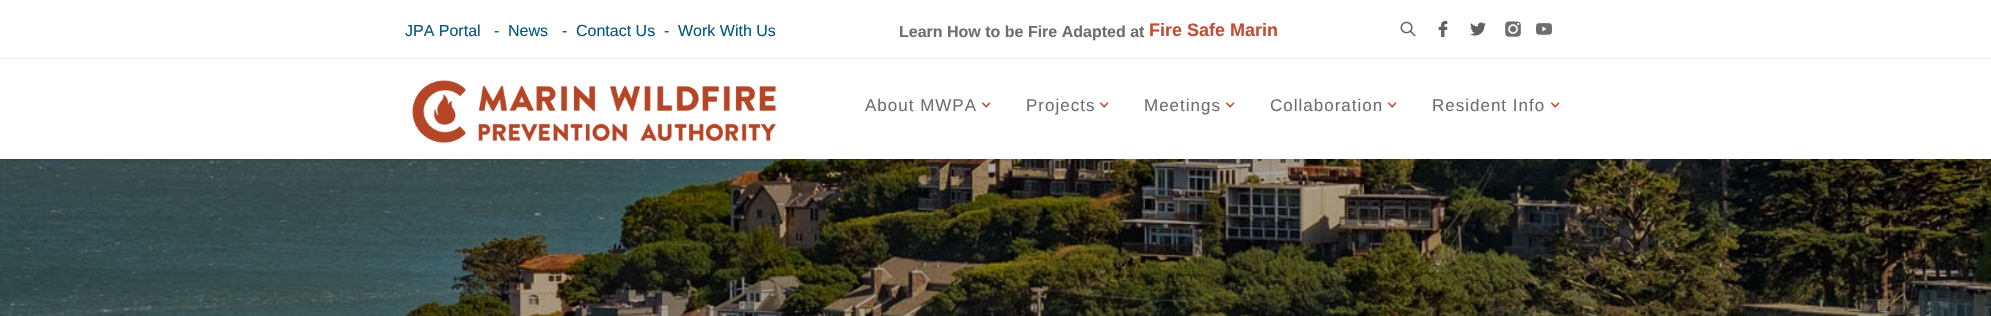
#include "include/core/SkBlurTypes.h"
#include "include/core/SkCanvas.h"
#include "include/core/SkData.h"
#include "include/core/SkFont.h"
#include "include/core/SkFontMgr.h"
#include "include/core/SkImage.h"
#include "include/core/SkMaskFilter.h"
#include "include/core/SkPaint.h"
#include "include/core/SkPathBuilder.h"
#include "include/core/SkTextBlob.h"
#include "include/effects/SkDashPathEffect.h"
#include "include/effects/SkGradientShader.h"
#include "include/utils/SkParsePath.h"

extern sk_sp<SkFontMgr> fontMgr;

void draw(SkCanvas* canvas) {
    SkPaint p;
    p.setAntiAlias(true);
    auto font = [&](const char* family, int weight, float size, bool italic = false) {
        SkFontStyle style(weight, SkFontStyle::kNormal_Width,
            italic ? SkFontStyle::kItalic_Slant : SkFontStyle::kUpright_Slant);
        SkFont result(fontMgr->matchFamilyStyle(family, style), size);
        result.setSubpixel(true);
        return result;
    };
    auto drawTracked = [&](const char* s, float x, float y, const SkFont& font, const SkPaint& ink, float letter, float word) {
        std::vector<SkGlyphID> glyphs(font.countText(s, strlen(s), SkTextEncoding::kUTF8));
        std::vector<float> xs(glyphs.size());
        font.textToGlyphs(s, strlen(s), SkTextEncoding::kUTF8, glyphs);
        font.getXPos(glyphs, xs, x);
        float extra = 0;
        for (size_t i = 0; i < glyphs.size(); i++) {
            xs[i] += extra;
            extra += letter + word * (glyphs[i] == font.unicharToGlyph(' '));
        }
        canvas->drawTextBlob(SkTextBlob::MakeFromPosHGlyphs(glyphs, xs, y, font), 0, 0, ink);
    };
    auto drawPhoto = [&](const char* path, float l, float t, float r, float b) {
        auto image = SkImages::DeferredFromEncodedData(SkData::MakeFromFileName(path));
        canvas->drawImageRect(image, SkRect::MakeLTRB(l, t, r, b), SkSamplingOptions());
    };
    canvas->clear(0xFFFFFFFF);
    drawPhoto("media/8.png", 0, 159, 1991, 316);
    p.setColor(0x1A000000);
    p.setMaskFilter(SkMaskFilter::MakeBlur(kNormal_SkBlurStyle, 1.5f));
    canvas->drawRect(SkRect::MakeLTRB(0, 1, 1991, 160), p);
    p.setMaskFilter(nullptr);
    p.setColor(0xFFFFFFFF);
    canvas->drawRect(SkRect::MakeLTRB(0, 0, 1991, 159), p);
    p.setColor(0xFFEDEDED);
    canvas->drawRect(SkRect::MakeLTRB(0, 58, 1991, 59), p);
    auto font1 = font("Liberation Sans", 400, 16);
    p.setColor(0xFF03597F);
    {
        const struct { const char* s; float x, y; } items[] = {
            {"JPA Portal", 405, 36},
            {"-", 494, 36},
            {"News", 508, 36},
            {"-", 562, 36},
            {"Contact Us", 576, 36},
            {"-", 664, 36},
            {"Work With Us", 678, 36},
        };
        for (auto [s, x, y] : items) {
            canvas->drawString(s, x, y, font1, p);
        }
    }
    auto font2 = font("Liberation Sans", 700, 16);
    p.setColor(0xFF6D6E70);
    canvas->drawString("Learn How to be Fire Adapted at", 899, 37, font2, p);
    auto font3 = font("Liberation Sans", 700, 18);
    p.setColor(0xFFC24F35);
    canvas->drawString("Fire Safe Marin", 1149, 36, font3, p);
    drawPhoto("media/1.png", 1400, 21, 1416, 37);
    drawPhoto("media/2.png", 1438, 21, 1448, 37);
    drawPhoto("media/3.png", 1470, 22, 1486, 36);
    drawPhoto("media/4.png", 1505, 21, 1521, 37);
    drawPhoto("media/5.png", 1536, 23, 1552, 35);
    drawPhoto("media/6.png", 412, 80, 776, 143);
    auto font4 = font("Liberation Sans", 400, 17);
    p.setColor(0xFF6D6E70);
    drawTracked("About MWPA", 865, 111, font4, p, 1, 0);
    drawPhoto("media/7.png", 981, 102, 991, 108);
    drawTracked("Projects", 1026, 111, font4, p, 1, 0);
    drawPhoto("media/7.png", 1099, 102, 1109, 108);
    drawTracked("Meetings", 1144, 111, font4, p, 1, 0);
    drawPhoto("media/7.png", 1225, 102, 1235, 108);
    drawTracked("Collaboration", 1270, 111, font4, p, 1, 0);
    drawPhoto("media/7.png", 1387, 102, 1397, 108);
    drawTracked("Resident Info", 1432, 111, font4, p, 1, 0);
    drawPhoto("media/7.png", 1550, 102, 1560, 108);
}
